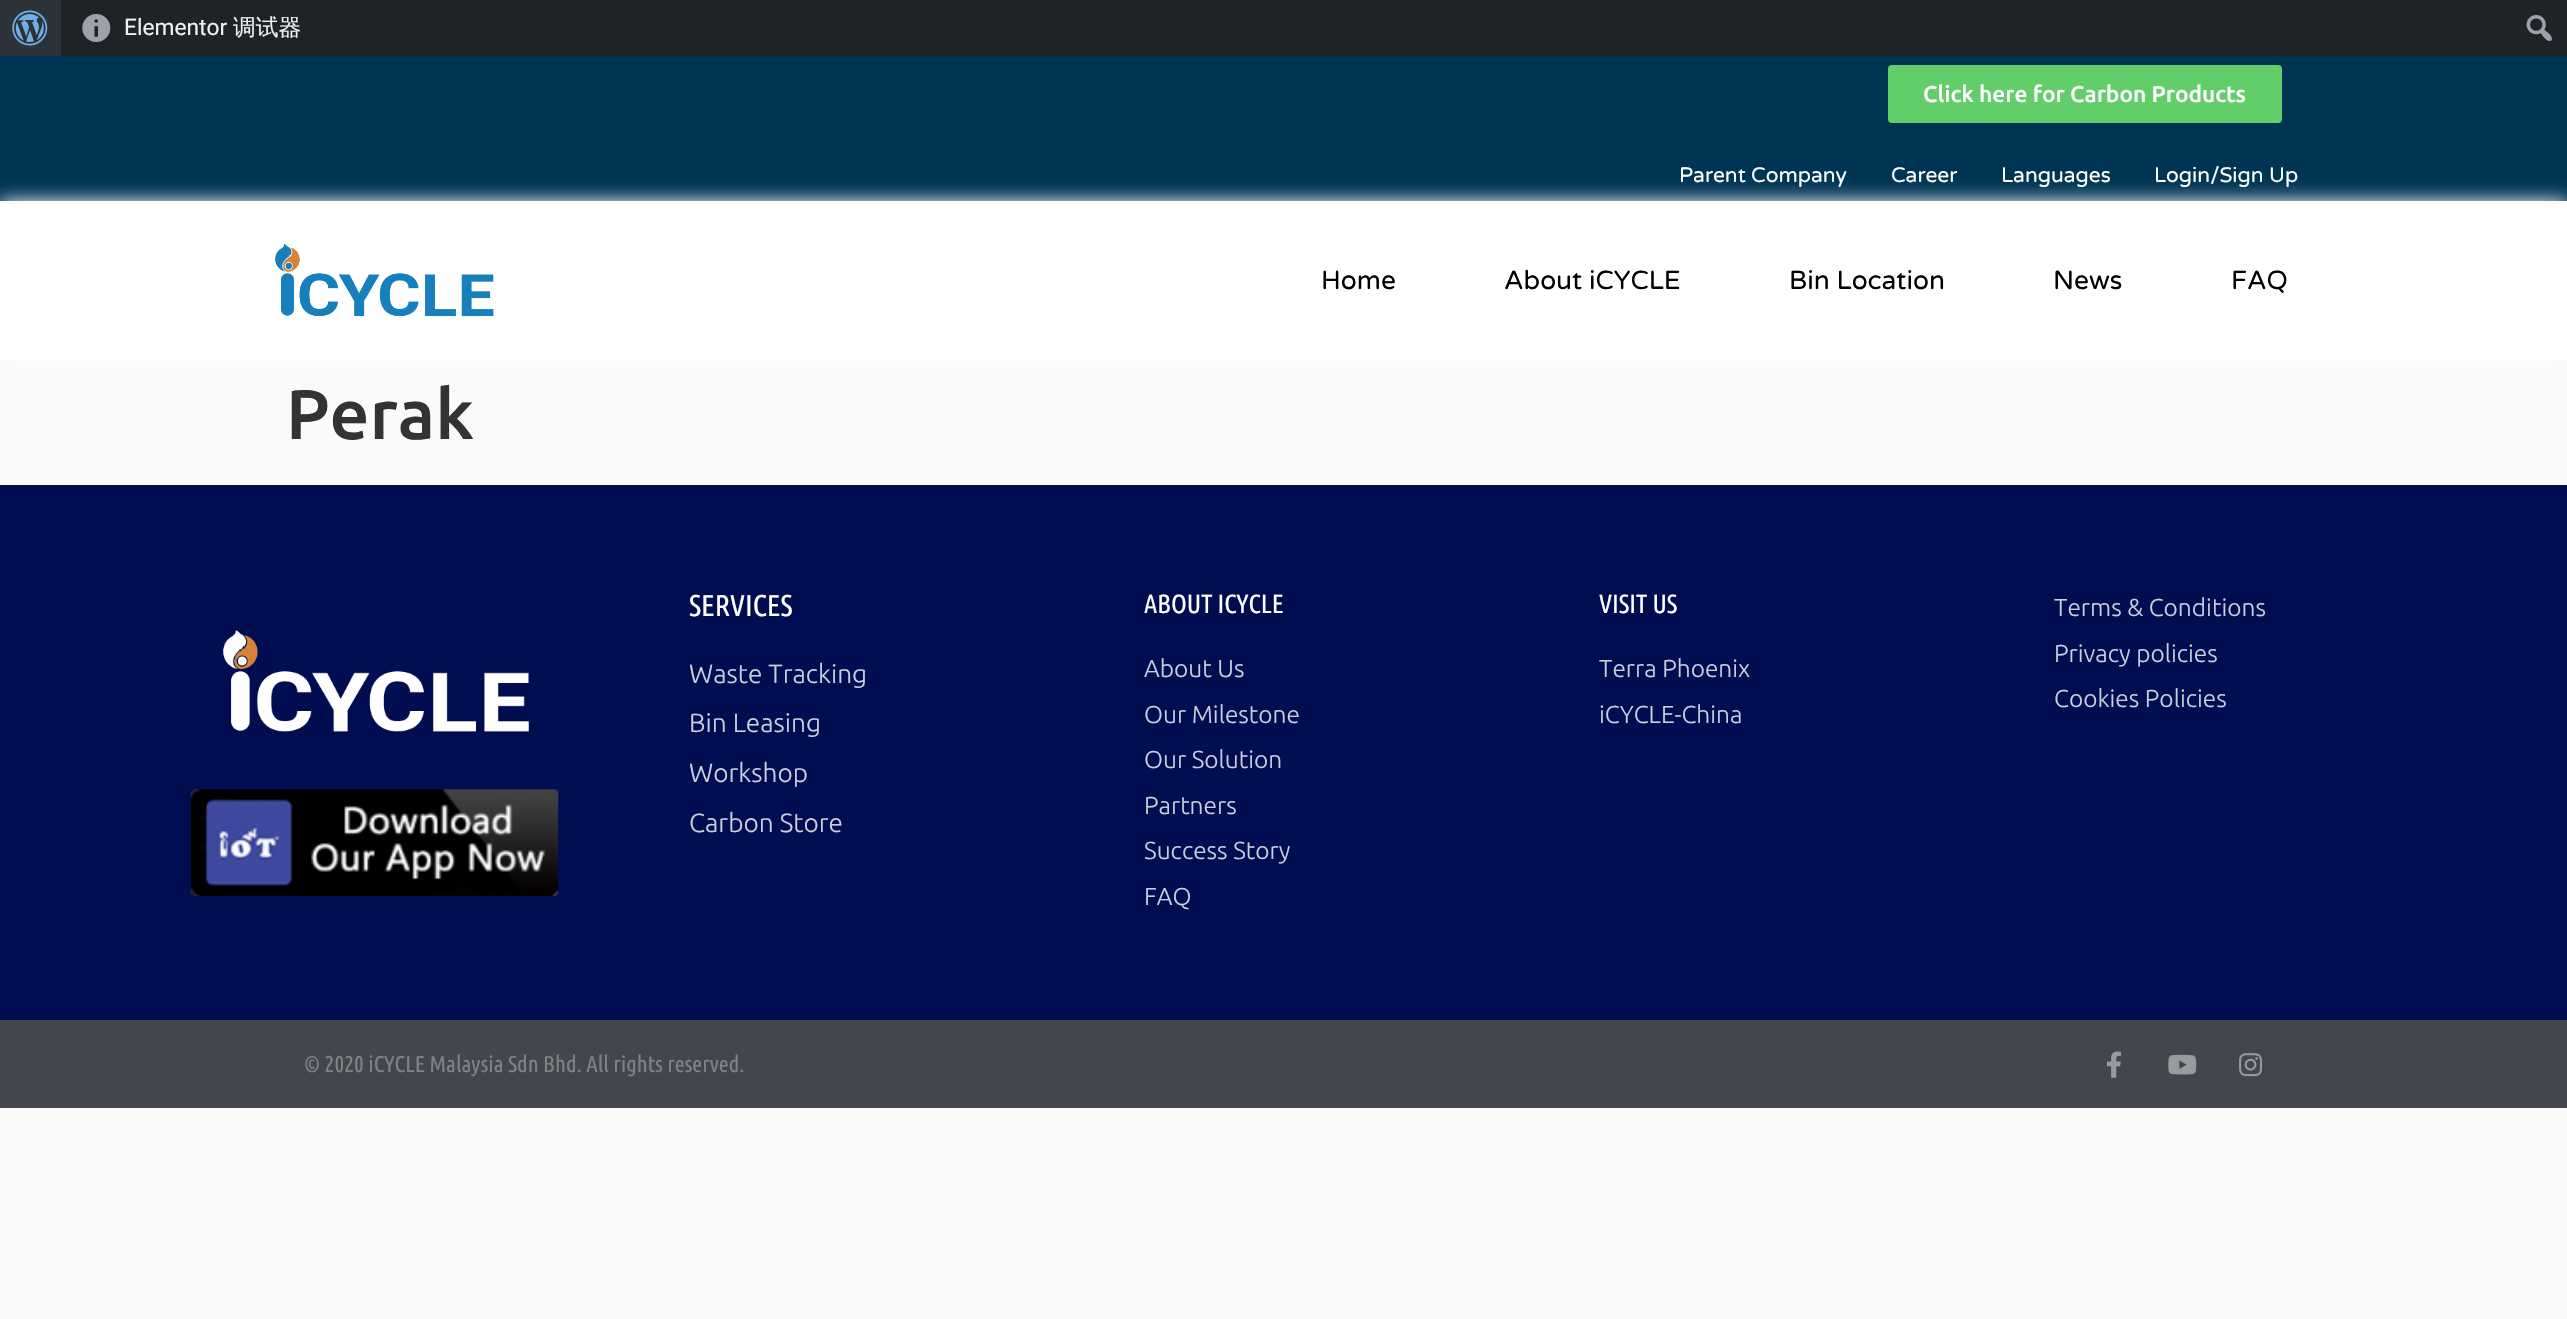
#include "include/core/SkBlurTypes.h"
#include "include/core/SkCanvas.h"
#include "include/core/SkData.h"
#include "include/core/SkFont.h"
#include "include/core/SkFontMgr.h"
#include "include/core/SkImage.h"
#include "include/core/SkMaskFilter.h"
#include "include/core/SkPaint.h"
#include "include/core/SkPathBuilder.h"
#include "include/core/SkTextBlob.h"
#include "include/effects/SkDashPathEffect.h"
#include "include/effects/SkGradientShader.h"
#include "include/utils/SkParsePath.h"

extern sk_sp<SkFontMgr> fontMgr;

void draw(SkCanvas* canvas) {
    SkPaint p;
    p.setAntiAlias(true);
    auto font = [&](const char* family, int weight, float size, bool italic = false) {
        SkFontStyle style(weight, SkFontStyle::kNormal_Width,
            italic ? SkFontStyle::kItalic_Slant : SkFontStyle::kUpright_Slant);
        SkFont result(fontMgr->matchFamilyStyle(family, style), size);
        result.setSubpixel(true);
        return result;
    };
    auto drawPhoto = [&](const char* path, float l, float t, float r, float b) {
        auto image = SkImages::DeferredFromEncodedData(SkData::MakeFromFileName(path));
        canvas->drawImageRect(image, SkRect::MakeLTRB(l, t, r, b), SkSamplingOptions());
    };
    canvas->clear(0xFFFAFAFA);
    p.setColor(0xFF1D2327);
    canvas->drawRect(SkRect::MakeLTRB(61, 0, 2567, 56), p);
    p.setColor(0xFF2C3338);
    canvas->drawRect(SkRect::MakeLTRB(0, 0, 61, 56), p);
    drawPhoto("media/1.png", 12, 10, 48, 46);
    drawPhoto("media/2.png", 82, 14, 111, 42);
    auto font1 = font("Roboto", 400, 22.75f);
    p.setColor(0xFFF0F0F1);
    canvas->drawString("Elementor", 124, 35, font1, p);
    auto font2 = font("WenQuanYi Zen Hei", 500, 22.75f);
    canvas->drawString("调试器", 233, 35, font2, p);
    drawPhoto("media/3.png", 2526, 15, 2552, 41);
    p.setColor(0xFF003453);
    canvas->drawRect(SkRect::MakeLTRB(0, 56, 2567, 201), p);
    p.setColor(0xFF61CE6A);
    canvas->drawRoundRect(SkRect::MakeLTRB(1888, 65, 2282, 123), 4, 4, p);
    auto font3 = font("Ubuntu", 500, 22.75f);
    p.setColor(0xFFFFFFFF);
    canvas->drawString("Click here for Carbon Products", 1923, 102, font3, p);
    p.setMaskFilter(SkMaskFilter::MakeBlur(kNormal_SkBlurStyle, 9));
    canvas->drawRect(SkRect::MakeLTRB(0, 201, 2567, 359), p);
    p.setMaskFilter(nullptr);
    auto font4 = font("Varela Round", 400, 21);
    {
        const struct { const char* s; float x, y; } items[] = {
            {"Parent Company", 1679, 182},
            {"Career", 1891, 182},
            {"Languages", 2001, 182},
            {"Login/Sign Up", 2154, 182},
        };
        for (auto [s, x, y] : items) {
            canvas->drawString(s, x, y, font4, p);
        }
    }
    canvas->drawRect(SkRect::MakeLTRB(0, 201, 2567, 359), p);
    drawPhoto("media/4.png", 275, 244, 494, 316);
    auto font5 = font("Varela Round", 400, 26.25f);
    p.setColor(0xFF000000);
    {
        const struct { const char* s; float x, y; } items[] = {
            {"Home", 1321, 289},
            {"About iCYCLE", 1504, 289},
            {"Bin Location", 1789, 289},
            {"News", 2053, 289},
            {"FAQ", 2231, 289},
        };
        for (auto [s, x, y] : items) {
            canvas->drawString(s, x, y, font5, p);
        }
    }
    auto font6 = font("Ubuntu", 500, 70);
    p.setColor(0xFF333333);
    canvas->drawString("Perak", 286, 439, font6, p);
    p.setColor(0xFF000E51);
    canvas->drawRect(SkRect::MakeLTRB(0, 485, 2567, 1020), p);
    drawPhoto("media/5.png", 223, 630, 529, 732);
    drawPhoto("media/6.png", 190, 789, 559, 896);
    auto font7 = font("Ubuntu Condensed", 400, 30);
    p.setColor(0xFFFFFFFF);
    canvas->drawString("SERVICES", 689, 616, font7, p);
    auto font8 = font("Ubuntu", 300, 26.25f);
    p.setColor(0xFFCCCFDC);
    {
        const struct { const char* s; float x, y; } items[] = {
            {"Waste Tracking", 689, 683},
            {"Bin Leasing", 689, 732},
            {"Workshop", 689, 782},
            {"Carbon Store", 689, 832},
        };
        for (auto [s, x, y] : items) {
            canvas->drawString(s, x, y, font8, p);
        }
    }
    auto font9 = font("Ubuntu Condensed", 400, 26.25f);
    p.setColor(0xFFFFFFFF);
    canvas->drawString("ABOUT ICYCLE", 1144, 613, font9, p);
    auto font10 = font("Ubuntu", 300, 24.5f);
    p.setColor(0xFFCCCFDC);
    {
        const struct { const char* s; float x, y; } items[] = {
            {"About Us", 1144, 677},
            {"Our Milestone", 1144, 723},
            {"Our Solution", 1144, 768},
            {"Partners", 1144, 814},
            {"Success Story", 1144, 859},
            {"FAQ", 1144, 905},
        };
        for (auto [s, x, y] : items) {
            canvas->drawString(s, x, y, font10, p);
        }
    }
    p.setColor(0xFFFFFFFF);
    canvas->drawString("VISIT US", 1599, 613, font9, p);
    p.setColor(0xFFCCCFDC);
    {
        const struct { const char* s; float x, y; } items[] = {
            {"Terra Phoenix", 1599, 677},
            {"iCYCLE-China", 1599, 723},
            {"Terms & Conditions", 2054, 616},
            {"Privacy policies", 2054, 662},
            {"Cookies Policies", 2054, 707},
        };
        for (auto [s, x, y] : items) {
            canvas->drawString(s, x, y, font10, p);
        }
    }
    p.setColor(0xFF43464C);
    canvas->drawRect(SkRect::MakeLTRB(0, 1020, 2567, 1108), p);
    auto font11 = font("Ubuntu Condensed", 400, 22.75f);
    p.setColor(0xFF7F8185);
    canvas->drawString("© 2020 iCYCLE Malaysia Sdn Bhd. All rights reserved.", 304, 1072, font11, p);
    drawPhoto("media/7.png", 2107, 1051, 2121, 1078);
    drawPhoto("media/8.png", 2168, 1054, 2197, 1075);
    drawPhoto("media/9.png", 2239, 1053, 2262, 1077);
}
